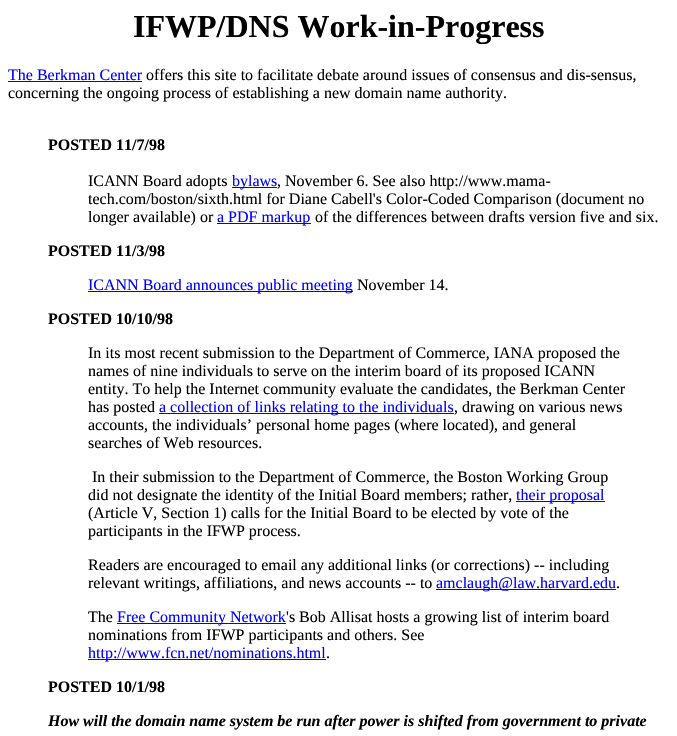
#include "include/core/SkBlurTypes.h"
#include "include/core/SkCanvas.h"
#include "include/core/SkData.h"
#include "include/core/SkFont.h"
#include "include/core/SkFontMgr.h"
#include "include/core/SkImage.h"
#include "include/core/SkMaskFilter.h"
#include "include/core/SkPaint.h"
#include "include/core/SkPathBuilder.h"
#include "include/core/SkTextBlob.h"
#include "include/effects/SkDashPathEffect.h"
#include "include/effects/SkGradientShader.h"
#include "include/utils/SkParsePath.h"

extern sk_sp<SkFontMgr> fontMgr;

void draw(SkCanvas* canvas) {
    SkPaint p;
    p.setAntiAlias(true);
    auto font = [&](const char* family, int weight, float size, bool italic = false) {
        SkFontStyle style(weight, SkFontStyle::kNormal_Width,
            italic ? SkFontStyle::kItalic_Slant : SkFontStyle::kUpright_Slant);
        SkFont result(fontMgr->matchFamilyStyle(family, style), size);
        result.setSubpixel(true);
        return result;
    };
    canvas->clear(0xFFFFFFFF);
    auto font1 = font("Liberation Serif", 700, 32);
    p.setColor(0xFF000000);
    canvas->drawString("IFWP/DNS Work-in-Progress", 133, 37, font1, p);
    auto font2 = font("Liberation Serif", 400, 16);
    p.setColor(0xFF0000FF);
    canvas->drawString("The Berkman Center", 8, 80, font2, p);
    canvas->drawRect(SkRect::MakeLTRB(8, 81, 142, 82), p);
    p.setColor(0xFF000000);
    canvas->drawString("offers this site to facilitate debate around issues of consensus and dis-sensus,", 146, 80, font2, p);
    canvas->drawString("concerning the ongoing process of establishing a new domain name authority.", 8, 98, font2, p);
    auto font3 = font("Liberation Serif", 700, 16);
    canvas->drawString("POSTED 11/7/98", 48, 150, font3, p);
    canvas->drawString("ICANN Board adopts", 88, 186, font2, p);
    p.setColor(0xFF0000FF);
    canvas->drawRect(SkRect::MakeLTRB(232, 187, 277, 188), p);
    canvas->drawString("bylaws", 232, 186, font2, p);
    p.setColor(0xFF000000);
    {
        const struct { const char* s; float x, y; } items[] = {
            {", November 6. See also http://www.mama-", 277, 186},
            {"tech.com/boston/sixth.html for Diane Cabell's Color-Coded Comparison (document no", 88, 204},
            {"longer available) or", 88, 222},
        };
        for (auto [s, x, y] : items) {
            canvas->drawString(s, x, y, font2, p);
        }
    }
    p.setColor(0xFF0000FF);
    canvas->drawRect(SkRect::MakeLTRB(217, 223, 311, 224), p);
    canvas->drawString("a PDF markup", 217, 222, font2, p);
    p.setColor(0xFF000000);
    canvas->drawString("of the differences between drafts version five and six.", 315, 222, font2, p);
    canvas->drawString("POSTED 11/3/98", 48, 256, font3, p);
    p.setColor(0xFF0000FF);
    canvas->drawRect(SkRect::MakeLTRB(88, 291, 353, 292), p);
    canvas->drawString("ICANN Board announces public meeting", 88, 290, font2, p);
    p.setColor(0xFF000000);
    canvas->drawString("November 14.", 357, 290, font2, p);
    canvas->drawString("POSTED 10/10/98", 48, 324, font3, p);
    {
        const struct { const char* s; float x, y; } items[] = {
            {"In its most recent submission to the Department of Commerce, IANA proposed the", 88, 358},
            {"names of nine individuals to serve on the interim board of its proposed ICANN", 88, 376},
            {"entity. To help the Internet community evaluate the candidates, the Berkman Center", 88, 394},
            {"has posted", 88, 412},
        };
        for (auto [s, x, y] : items) {
            canvas->drawString(s, x, y, font2, p);
        }
    }
    p.setColor(0xFF0000FF);
    canvas->drawRect(SkRect::MakeLTRB(159, 413, 454, 414), p);
    canvas->drawString("a collection of links relating to the individuals", 159, 412, font2, p);
    p.setColor(0xFF000000);
    {
        const struct { const char* s; float x, y; } items[] = {
            {", drawing on various news", 454, 412},
            {"accounts, the individuals’ personal home pages (where located), and general", 88, 430},
            {"searches of Web resources.", 88, 448},
            {"In their submission to the Department of Commerce, the Boston Working Group", 92, 482},
            {"did not designate the identity of the Initial Board members; rather,", 88, 500},
        };
        for (auto [s, x, y] : items) {
            canvas->drawString(s, x, y, font2, p);
        }
    }
    p.setColor(0xFF0000FF);
    canvas->drawRect(SkRect::MakeLTRB(516, 501, 605, 502), p);
    canvas->drawString("their proposal", 516, 500, font2, p);
    p.setColor(0xFF000000);
    {
        const struct { const char* s; float x, y; } items[] = {
            {"(Article V, Section 1) calls for the Initial Board to be elected by vote of the", 88, 518},
            {"participants in the IFWP process.", 88, 536},
            {"Readers are encouraged to email any additional links (or corrections) -- including", 88, 570},
            {"relevant writings, affiliations, and news accounts -- to", 88, 588},
        };
        for (auto [s, x, y] : items) {
            canvas->drawString(s, x, y, font2, p);
        }
    }
    p.setColor(0xFF0000FF);
    canvas->drawRect(SkRect::MakeLTRB(436, 589, 616, 590), p);
    canvas->drawString("amclaugh@law.harvard.edu", 436, 588, font2, p);
    p.setColor(0xFF000000);
    canvas->drawString(".", 616, 588, font2, p);
    canvas->drawString("The", 88, 622, font2, p);
    p.setColor(0xFF0000FF);
    canvas->drawRect(SkRect::MakeLTRB(117, 623, 286, 624), p);
    canvas->drawString("Free Community Network", 117, 622, font2, p);
    p.setColor(0xFF000000);
    canvas->drawString("'s Bob Allisat hosts a growing list of interim board", 286, 622, font2, p);
    canvas->drawString("nominations from IFWP participants and others. See", 88, 640, font2, p);
    p.setColor(0xFF0000FF);
    canvas->drawRect(SkRect::MakeLTRB(88, 659, 326, 660), p);
    canvas->drawString("http://www.fcn.net/nominations.html", 88, 658, font2, p);
    p.setColor(0xFF000000);
    canvas->drawString(".", 326, 658, font2, p);
    canvas->drawString("POSTED 10/1/98", 48, 692, font3, p);
    auto font4 = font("Liberation Serif", 700, 16, true);
    canvas->drawString("How will the domain name system be run after power is shifted from government to private", 48, 726, font4, p);
}
